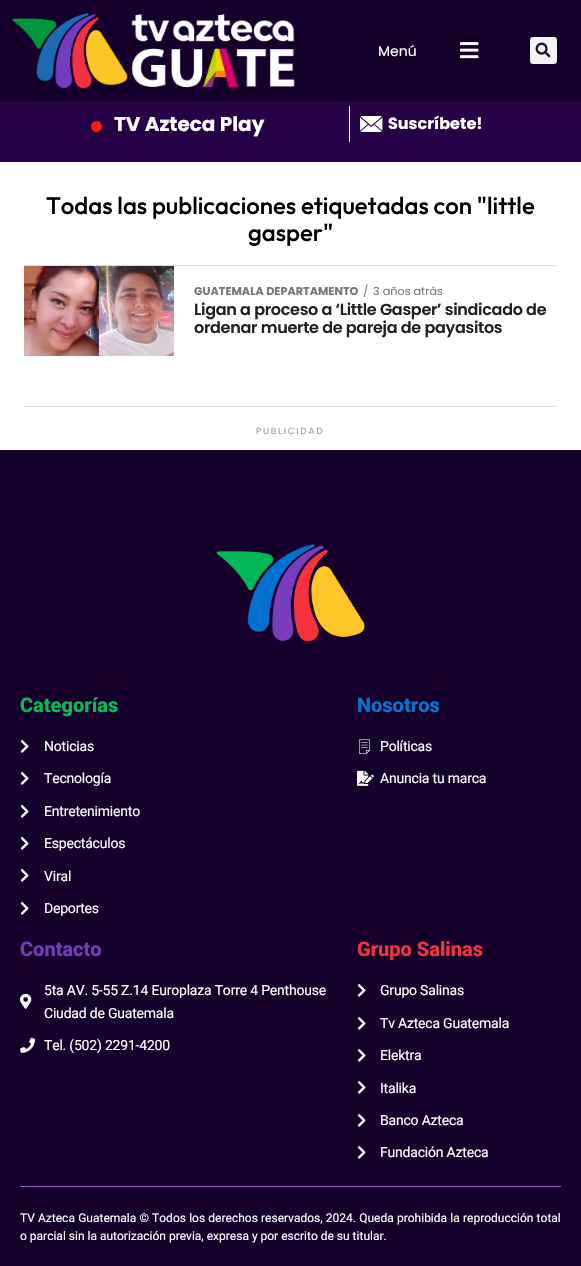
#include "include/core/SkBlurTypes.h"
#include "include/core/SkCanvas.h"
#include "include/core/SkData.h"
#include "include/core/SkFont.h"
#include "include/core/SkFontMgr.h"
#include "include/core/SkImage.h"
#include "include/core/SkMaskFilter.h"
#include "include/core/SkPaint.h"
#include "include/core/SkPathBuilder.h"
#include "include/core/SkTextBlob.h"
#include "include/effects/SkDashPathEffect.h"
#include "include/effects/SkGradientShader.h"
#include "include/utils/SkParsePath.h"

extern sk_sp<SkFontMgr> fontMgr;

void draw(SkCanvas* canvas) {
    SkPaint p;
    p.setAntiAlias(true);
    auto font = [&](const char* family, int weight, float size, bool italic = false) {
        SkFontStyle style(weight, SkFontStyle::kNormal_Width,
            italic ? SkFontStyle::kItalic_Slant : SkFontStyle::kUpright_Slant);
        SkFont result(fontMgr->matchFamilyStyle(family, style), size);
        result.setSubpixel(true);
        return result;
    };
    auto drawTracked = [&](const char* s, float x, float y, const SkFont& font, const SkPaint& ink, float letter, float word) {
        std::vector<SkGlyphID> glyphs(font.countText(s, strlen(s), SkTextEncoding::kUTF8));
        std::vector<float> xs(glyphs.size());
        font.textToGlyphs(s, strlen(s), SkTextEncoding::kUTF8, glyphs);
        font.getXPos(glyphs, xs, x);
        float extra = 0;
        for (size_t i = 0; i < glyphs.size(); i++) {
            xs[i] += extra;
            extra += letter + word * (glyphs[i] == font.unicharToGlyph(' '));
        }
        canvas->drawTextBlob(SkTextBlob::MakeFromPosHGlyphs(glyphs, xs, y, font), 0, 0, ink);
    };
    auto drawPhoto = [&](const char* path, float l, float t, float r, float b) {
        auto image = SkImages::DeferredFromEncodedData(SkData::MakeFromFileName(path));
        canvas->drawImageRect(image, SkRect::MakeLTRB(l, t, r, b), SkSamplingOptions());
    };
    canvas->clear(0xFFFFFFFF);
    p.setColor(0xFF14002A);
    canvas->drawRect(SkRect::MakeLTRB(0, 0, 581, 101), p);
    drawPhoto("media/1.png", 12, 13, 295, 89);
    auto font1 = font("Poppins", 400, 14);
    p.setColor(0xFFFFFFFF);
    canvas->drawString("Menú", 378, 56, font1, p);
    drawPhoto("media/2.png", 460, 42, 479, 59);
    p.setColor(0xFFF3F3F3);
    canvas->drawRoundRect(SkRect::MakeLTRB(530, 37, 557, 64), 3, 3, p);
    drawPhoto("media/3.png", 535, 42, 551, 58);
    p.setColor(0xFF260145);
    canvas->drawRect(SkRect::MakeLTRB(0, 101, 581, 162), p);
    drawPhoto("media/4.png", 90, 120, 103, 133);
    auto font2 = font("Poppins", 700, 20);
    p.setColor(0xFFFFFFFF);
    canvas->drawString("TV Azteca Play", 114, 131, font2, p);
    canvas->drawRect(SkRect::MakeLTRB(349, 106, 350, 142), p);
    drawPhoto("media/5.png", 360, 116, 383, 132);
    auto font3 = font("Poppins", 700, 16);
    canvas->drawString("Suscríbete!", 388, 129, font3, p);
    auto font4 = font("Outfit", 500, 24);
    p.setColor(0xFF000000);
    canvas->drawString("Todas las publicaciones etiquetadas con \"little", 46, 214, font4, p);
    canvas->drawString("gasper\"", 248, 241, font4, p);
    p.setColor(0xFFDDDDDD);
    canvas->drawRect(SkRect::MakeLTRB(24, 265, 557, 266), p);
    drawPhoto("media/6.png", 24, 266, 174, 356);
    auto font5 = font("Poppins", 700, 11.25f);
    p.setColor(0xFF777777);
    canvas->drawString("GUATEMALA DEPARTAMENTO", 194, 295, font5, p);
    auto font6 = font("Poppins", 400, 11.25f);
    canvas->drawString("/", 363, 295, font6, p);
    canvas->drawString("3 años atrás", 373, 295, font6, p);
    auto font7 = font("Poppins", 600, 16);
    p.setColor(0xFF222222);
    drawTracked("Ligan a proceso a ‘Little Gasper’ sindicado de", 194, 315, font7, p, -0.3f, 0);
    drawTracked("ordenar muerte de pareja de payasitos", 194, 333, font7, p, -0.3f, 0);
    p.setColor(0xFFDDDDDD);
    canvas->drawRect(SkRect::MakeLTRB(24, 406, 557, 407), p);
    auto font8 = font("Poppins", 400, 9);
    p.setColor(0xFF999999);
    drawTracked("PUBLICIDAD", 256, 434, font8, p, 1.75f, 0);
    p.setColor(0xFF14002A);
    canvas->drawRect(SkRect::MakeLTRB(0, 450, 581, 1266), p);
    drawPhoto("media/7.png", 216, 544, 365, 642);
    auto font9 = font("Roboto", 800, 20);
    p.setColor(0xFF04BB54);
    canvas->drawString("Categorías", 20, 712, font9, p);
    drawPhoto("media/8.png", 20, 740, 29, 753);
    auto font10 = font("Roboto", 400, 14);
    p.setColor(0xFFFFFFFF);
    drawTracked("Noticias", 44, 751, font10, p, -0.2f, 0);
    drawPhoto("media/8.png", 20, 772, 29, 785);
    drawTracked("Tecnología", 44, 783, font10, p, -0.2f, 0);
    drawPhoto("media/8.png", 20, 805, 29, 818);
    drawTracked("Entretenimiento", 44, 816, font10, p, -0.2f, 0);
    drawPhoto("media/8.png", 20, 837, 29, 850);
    drawTracked("Espectáculos", 44, 848, font10, p, -0.2f, 0);
    drawPhoto("media/8.png", 20, 869, 29, 882);
    drawTracked("Viral", 44, 881, font10, p, -0.2f, 0);
    drawPhoto("media/8.png", 20, 902, 29, 915);
    drawTracked("Deportes", 44, 913, font10, p, -0.2f, 0);
    p.setColor(0xFF0474CC);
    canvas->drawString("Nosotros", 357, 712, font9, p);
    drawPhoto("media/9.png", 359, 739, 370, 754);
    p.setColor(0xFFFFFFFF);
    drawTracked("Políticas", 380, 751, font10, p, -0.2f, 0);
    drawPhoto("media/10.png", 357, 770, 374, 786);
    drawTracked("Anuncia tu marca", 380, 783, font10, p, -0.2f, 0);
    p.setColor(0xFF743CBC);
    canvas->drawString("Contacto", 20, 956, font9, p);
    drawPhoto("media/11.png", 20, 993, 32, 1009);
    p.setColor(0xFFFFFFFF);
    drawTracked("5ta AV. 5-55 Z.14 Europlaza Torre 4 Penthouse", 44, 995, font10, p, -0.2f, 0);
    drawTracked("Ciudad de Guatemala", 44, 1018, font10, p, -0.2f, 0);
    drawPhoto("media/12.png", 20, 1037, 35, 1053);
    drawTracked("Tel. (502) 2291-4200", 44, 1050, font10, p, -0.2f, 0);
    p.setColor(0xFFF4343C);
    canvas->drawString("Grupo Salinas", 357, 956, font9, p);
    drawPhoto("media/8.png", 357, 984, 366, 997);
    p.setColor(0xFFFFFFFF);
    drawTracked("Grupo Salinas", 380, 995, font10, p, -0.2f, 0);
    drawPhoto("media/8.png", 357, 1017, 366, 1030);
    drawTracked("Tv Azteca Guatemala", 380, 1028, font10, p, -0.2f, 0);
    drawPhoto("media/8.png", 357, 1049, 366, 1062);
    drawTracked("Elektra", 380, 1060, font10, p, -0.2f, 0);
    drawPhoto("media/8.png", 357, 1081, 366, 1094);
    drawTracked("Italika", 380, 1093, font10, p, -0.2f, 0);
    drawPhoto("media/8.png", 357, 1114, 366, 1127);
    drawTracked("Banco Azteca", 380, 1125, font10, p, -0.2f, 0);
    drawPhoto("media/8.png", 357, 1146, 366, 1159);
    drawTracked("Fundación Azteca", 380, 1157, font10, p, -0.2f, 0);
    p.setColor(0xFF925FCB);
    canvas->drawRect(SkRect::MakeLTRB(20, 1186, 561, 1187), p);
    auto font11 = font("Roboto", 400, 12);
    p.setColor(0xFFFFFFFF);
    drawTracked("TV Azteca Guatemala © Todos los derechos reservados, 2024. Queda prohibida la reproducción total", 20, 1222, font11, p, 0, 0.25f);
    canvas->drawString("o parcial sin la autorización previa, expresa y por escrito de su titular.", 20, 1240, font11, p);
}
